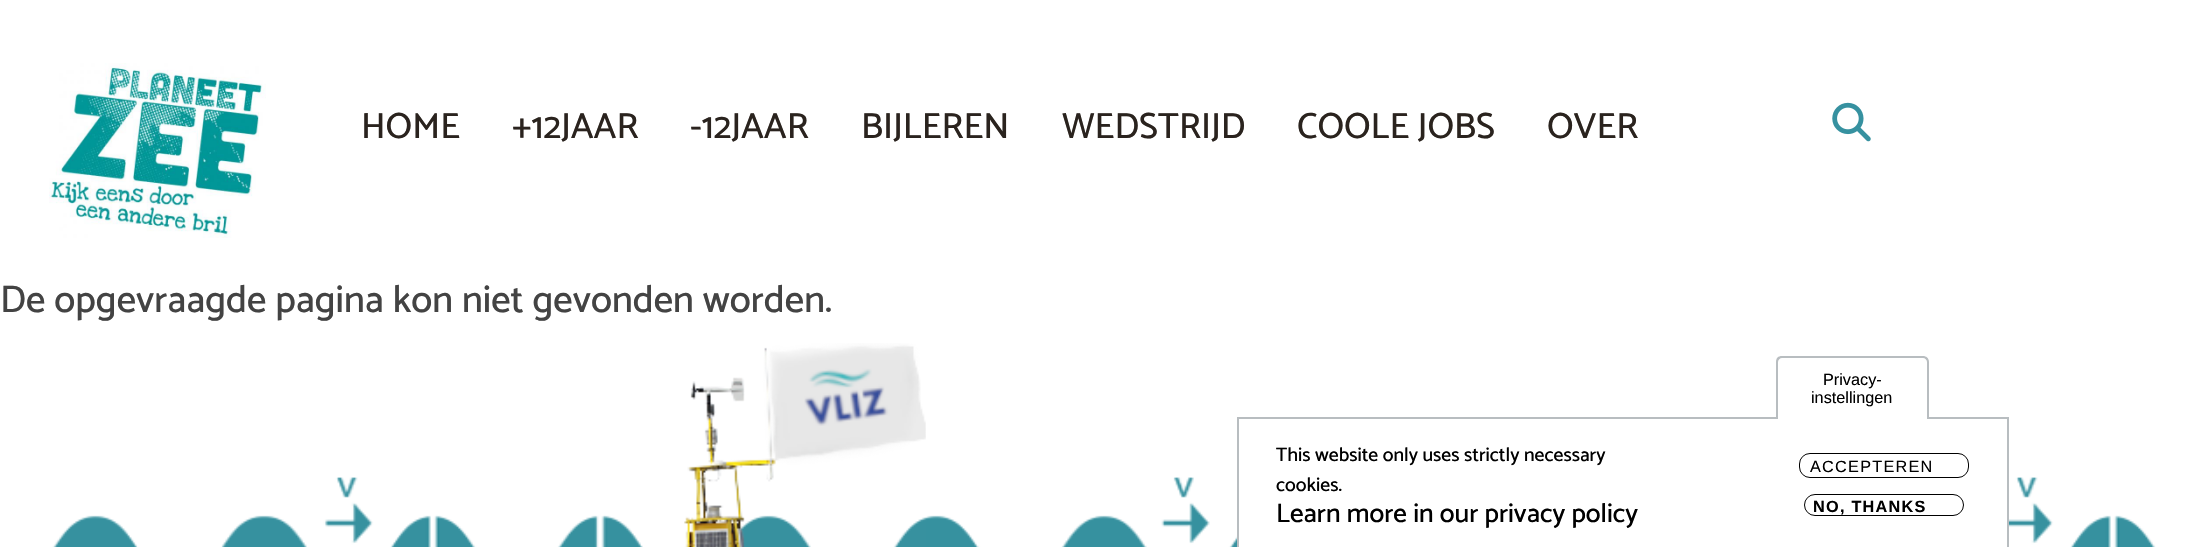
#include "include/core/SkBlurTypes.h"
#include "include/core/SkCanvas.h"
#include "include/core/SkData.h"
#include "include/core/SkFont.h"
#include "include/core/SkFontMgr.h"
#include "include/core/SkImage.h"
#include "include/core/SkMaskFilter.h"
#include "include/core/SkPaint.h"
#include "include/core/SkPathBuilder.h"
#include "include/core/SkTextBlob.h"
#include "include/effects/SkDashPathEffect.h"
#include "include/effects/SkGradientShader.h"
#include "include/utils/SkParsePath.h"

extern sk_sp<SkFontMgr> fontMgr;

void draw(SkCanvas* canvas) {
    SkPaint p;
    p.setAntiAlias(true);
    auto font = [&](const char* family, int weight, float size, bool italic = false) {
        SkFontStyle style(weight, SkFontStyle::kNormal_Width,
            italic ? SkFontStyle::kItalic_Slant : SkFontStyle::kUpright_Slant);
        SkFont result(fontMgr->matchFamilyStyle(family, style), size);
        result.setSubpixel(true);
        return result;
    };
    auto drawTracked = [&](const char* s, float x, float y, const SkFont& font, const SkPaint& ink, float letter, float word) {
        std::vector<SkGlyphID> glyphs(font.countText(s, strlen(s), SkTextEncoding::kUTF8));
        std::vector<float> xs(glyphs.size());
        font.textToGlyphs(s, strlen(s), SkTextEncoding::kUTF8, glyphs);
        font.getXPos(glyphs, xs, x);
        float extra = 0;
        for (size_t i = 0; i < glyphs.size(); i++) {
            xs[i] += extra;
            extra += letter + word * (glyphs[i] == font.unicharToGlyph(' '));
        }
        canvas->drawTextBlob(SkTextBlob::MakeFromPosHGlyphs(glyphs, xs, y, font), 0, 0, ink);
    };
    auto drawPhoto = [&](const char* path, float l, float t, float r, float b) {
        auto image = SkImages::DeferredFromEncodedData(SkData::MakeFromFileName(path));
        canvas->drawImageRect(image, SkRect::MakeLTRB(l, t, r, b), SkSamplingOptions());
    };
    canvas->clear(0xFFFFFFFF);
    drawPhoto("media/1.png", 49, 63, 266, 238);
    auto font1 = font("Catamaran", 100, 36.5f);
    p.setColor(0xFF2A231E);
    {
        const struct { const char* s; float x, y; } items[] = {
            {"HOME", 361, 138},
            {"+12JAAR", 512, 138},
            {"-12JAAR", 690, 138},
            {"BIJLEREN", 861, 138},
            {"WEDSTRIJD", 1062, 138},
            {"COOLE JOBS", 1297, 138},
            {"OVER", 1547, 138},
        };
        for (auto [s, x, y] : items) {
            canvas->drawString(s, x, y, font1, p);
        }
    }
    drawPhoto("media/2.png", 1832, 102, 1871, 142);
    auto font2 = font("Catamaran", 100, 38.5f);
    p.setColor(0xFF434343);
    canvas->drawString("De opgevraagde pagina kon niet gevonden worden.", 0, 312, font2, p);
    drawPhoto("media/3.png", 52, 477, 2156, 547);
    drawPhoto("media/4.png", 684, 343, 926, 547);
    p.setColor(0xFFFFFFFF);
    canvas->drawRect(SkRect::MakeLTRB(1239, 515, 2007, 547), p);
    p.setStyle(SkPaint::kStroke_Style);
    p.setStrokeWidth(2);
    p.setColor(0xFFB8BDC0);
    canvas->drawRect(SkRect::MakeLTRB(1238, 418, 2008, 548), p);
    p.setStyle(SkPaint::kFill_Style);
    p.setColor(0xFFFFFFFF);
    canvas->drawPath(SkPathBuilder().moveTo(1782, 359).lineTo(1923, 359).cubicTo(1925, 359, 1927, 361, 1927, 363).lineTo(1927, 420).lineTo(1778, 420).lineTo(1778, 363).cubicTo(1778, 361, 1780, 359, 1782, 359).close().detach(), p);
    p.setColor(0xFFB8BDC0);
    canvas->drawPath(SkPathBuilder(SkPathFillType::kEvenOdd).moveTo(1782, 356).lineTo(1923, 356).cubicTo(1926, 356, 1929, 358, 1929, 362).lineTo(1929, 419).lineTo(1776, 419).lineTo(1776, 362).cubicTo(1776, 358, 1778, 356, 1782, 356).close().moveTo(1782, 358).lineTo(1923, 358).cubicTo(1925, 358, 1927, 360, 1927, 362).lineTo(1927, 419).lineTo(1778, 419).lineTo(1778, 362).cubicTo(1778, 360, 1780, 358, 1782, 358).close().detach(), p);
    auto font3 = font("Liberation Sans", 400, 16.25f);
    p.setColor(0xFF000000);
    canvas->drawString("Privacy-", 1823, 385, font3, p);
    canvas->drawString("instellingen", 1811, 403, font3, p);
    auto font4 = font("Catamaran", 100, 19.6f);
    canvas->drawString("This website only uses strictly necessary", 1276, 461, font4, p);
    canvas->drawString("cookies.", 1276, 491, font4, p);
    auto font5 = font("Catamaran", 100, 27);
    canvas->drawString("Learn more in our privacy policy", 1276, 522, font5, p);
    p.setStyle(SkPaint::kStroke_Style);
    p.setStrokeWidth(1);
    canvas->drawRoundRect(SkRect::MakeLTRB(1799.5f, 453.5f, 1968.5f, 477.5f), 10.5f, 10.5f, p);
    p.setStyle(SkPaint::kFill_Style);
    drawTracked("ACCEPTEREN", 1810, 472, font3, p, 1.25f, 0);
    p.setStyle(SkPaint::kStroke_Style);
    canvas->drawRoundRect(SkRect::MakeLTRB(1804.5f, 494.5f, 1963.5f, 515.5f), 10.5f, 10.5f, p);
    auto font6 = font("Liberation Sans", 700, 16.25f);
    p.setStyle(SkPaint::kFill_Style);
    drawTracked("NO, THANKS", 1813, 512, font6, p, 1.25f, 0);
}
